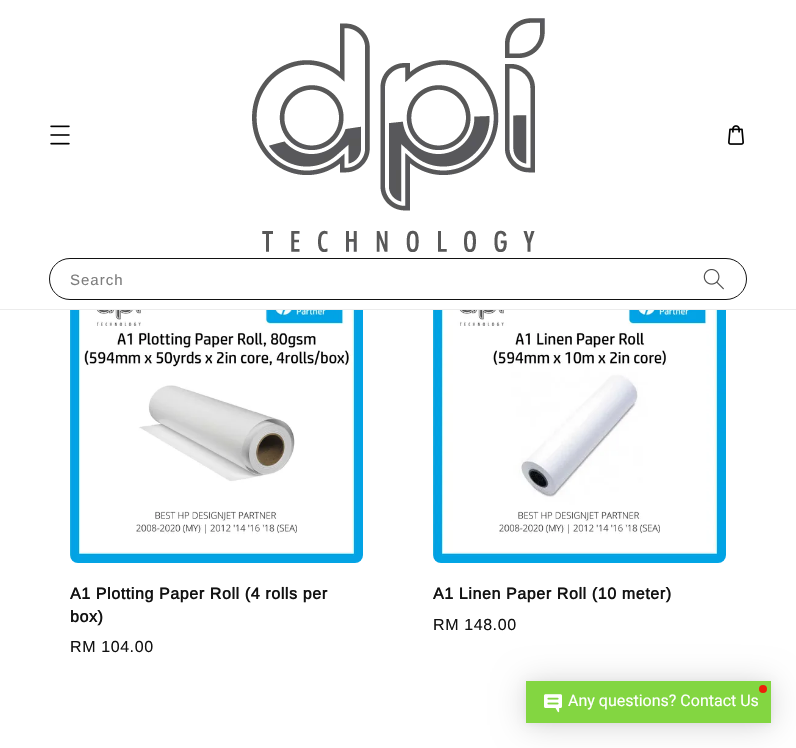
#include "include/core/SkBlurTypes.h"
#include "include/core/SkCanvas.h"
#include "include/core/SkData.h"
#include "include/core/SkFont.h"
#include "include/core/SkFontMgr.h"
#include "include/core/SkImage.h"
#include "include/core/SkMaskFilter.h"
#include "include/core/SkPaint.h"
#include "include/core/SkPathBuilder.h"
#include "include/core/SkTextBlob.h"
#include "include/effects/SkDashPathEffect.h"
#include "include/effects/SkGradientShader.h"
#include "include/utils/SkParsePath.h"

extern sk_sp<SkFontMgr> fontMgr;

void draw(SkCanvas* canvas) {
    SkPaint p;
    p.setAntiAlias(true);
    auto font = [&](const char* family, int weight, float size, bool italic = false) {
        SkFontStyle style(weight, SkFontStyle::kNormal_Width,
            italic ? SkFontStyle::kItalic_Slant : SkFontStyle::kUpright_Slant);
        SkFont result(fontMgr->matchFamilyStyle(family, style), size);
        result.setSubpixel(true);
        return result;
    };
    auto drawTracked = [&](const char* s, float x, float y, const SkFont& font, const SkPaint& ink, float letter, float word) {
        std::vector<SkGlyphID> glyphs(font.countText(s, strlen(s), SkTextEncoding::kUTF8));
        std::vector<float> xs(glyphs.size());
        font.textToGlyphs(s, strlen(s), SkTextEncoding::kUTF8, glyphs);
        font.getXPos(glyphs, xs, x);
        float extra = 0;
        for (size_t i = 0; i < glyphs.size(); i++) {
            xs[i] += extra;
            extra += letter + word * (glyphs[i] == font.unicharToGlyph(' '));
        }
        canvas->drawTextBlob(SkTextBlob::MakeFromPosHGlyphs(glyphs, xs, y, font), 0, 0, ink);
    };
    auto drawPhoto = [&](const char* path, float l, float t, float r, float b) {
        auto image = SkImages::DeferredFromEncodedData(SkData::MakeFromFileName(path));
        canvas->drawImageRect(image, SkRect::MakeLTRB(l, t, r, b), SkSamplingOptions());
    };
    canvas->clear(0xFFFFFFFF);
    p.setColor(0xFFECECEC);
    canvas->drawRect(SkRect::MakeLTRB(0, 309, 796, 310), p);
    drawPhoto("media/1.png", 50, 125, 70, 145);
    drawPhoto("media/2.png", 252, 18, 545, 252);
    drawPhoto("media/3.png", 728, 125, 744, 145);
    p.setStyle(SkPaint::kStroke_Style);
    p.setStrokeWidth(1);
    p.setColor(0xFF121212);
    canvas->drawRoundRect(SkRect::MakeLTRB(49.5f, 258.5f, 746.5f, 299.5f), 20.5f, 20.5f, p);
    auto font1 = font("Arimo", 400, 15);
    p.setStyle(SkPaint::kFill_Style);
    p.setColor(0xFF7D7D7D);
    drawTracked("Search", 70, 285, font1, p, 1, 0);
    drawPhoto("media/4.png", 703, 269, 724, 290);
    drawPhoto("media/5.png", 70, 310, 363, 563);
    auto font2 = font("Arimo", 700, 16);
    p.setColor(0xFF121212);
    drawTracked("A1 Plotting Paper Roll (4 rolls per", 70, 599, font2, p, 0.6f, 0);
    drawTracked("box)", 70, 622, font2, p, 0.6f, 0);
    auto font3 = font("Arimo", 400, 16);
    drawTracked("RM 104.00", 70, 652, font3, p, 0.6f, 0);
    drawPhoto("media/6.png", 433, 310, 726, 563);
    drawTracked("A1 Linen Paper Roll (10 meter)", 433, 599, font2, p, 0.6f, 0);
    drawTracked("RM 148.00", 433, 630, font3, p, 0.6f, 0);
    p.setColor(0x29000000);
    p.setMaskFilter(SkMaskFilter::MakeBlur(kNormal_SkBlurStyle, 16));
    canvas->drawRect(SkRect::MakeLTRB(526, 683, 771, 725), p);
    p.setMaskFilter(nullptr);
    p.setColor(0x0F000000);
    p.setMaskFilter(SkMaskFilter::MakeBlur(kNormal_SkBlurStyle, 3));
    canvas->drawRect(SkRect::MakeLTRB(526, 682, 771, 724), p);
    p.setMaskFilter(nullptr);
    p.setColor(0xFF83D641);
    canvas->drawRect(SkRect::MakeLTRB(526, 681, 771, 723), p);
    p.setColor(0xFFEC200A);
    canvas->drawCircle(763, 689, 4, p);
    drawPhoto("media/7.png", 544, 694, 562, 713);
    auto font4 = font("Roboto", 400, 16);
    p.setColor(0xFFFFFFFF);
    canvas->drawString("Any questions? Contact Us", 568, 706, font4, p);
}
